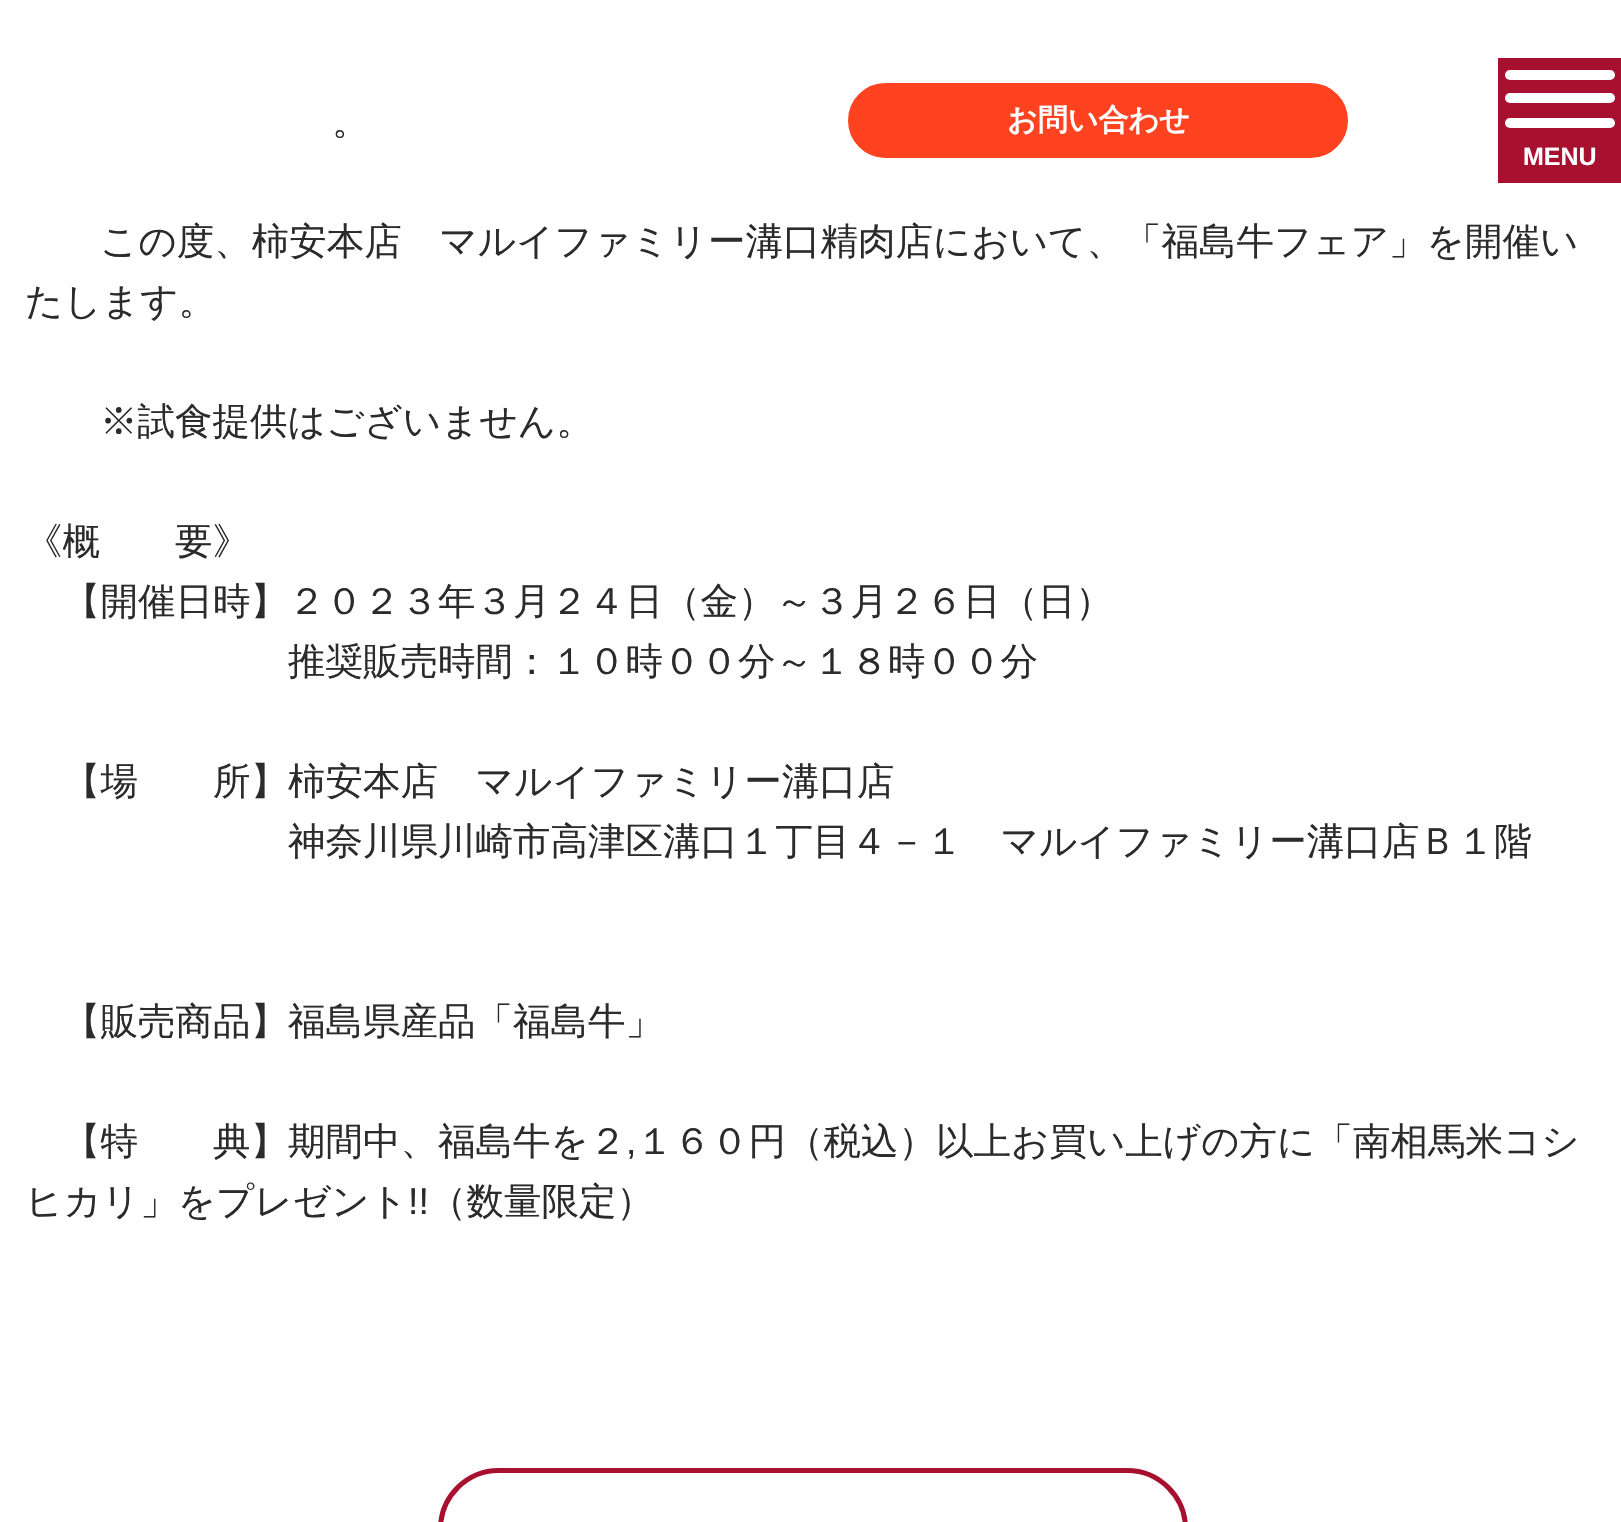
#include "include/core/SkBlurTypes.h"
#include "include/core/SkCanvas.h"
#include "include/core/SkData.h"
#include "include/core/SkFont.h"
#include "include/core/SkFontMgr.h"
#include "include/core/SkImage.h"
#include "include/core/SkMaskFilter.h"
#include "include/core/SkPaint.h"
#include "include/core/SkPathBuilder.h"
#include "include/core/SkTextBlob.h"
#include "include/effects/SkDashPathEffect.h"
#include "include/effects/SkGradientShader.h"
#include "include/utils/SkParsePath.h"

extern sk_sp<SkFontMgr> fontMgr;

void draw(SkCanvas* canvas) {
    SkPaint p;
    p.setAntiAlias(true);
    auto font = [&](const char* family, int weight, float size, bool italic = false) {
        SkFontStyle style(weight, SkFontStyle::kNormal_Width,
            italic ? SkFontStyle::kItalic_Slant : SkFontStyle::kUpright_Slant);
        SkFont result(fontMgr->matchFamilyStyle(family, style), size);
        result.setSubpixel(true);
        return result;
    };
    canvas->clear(0xFFFFFFFF);
    p.setColor(0xFFFF4220);
    canvas->drawRoundRect(SkRect::MakeLTRB(849.5f, 84.5f, 1346.5f, 156.5f), 36, 36, p);
    p.setStyle(SkPaint::kStroke_Style);
    p.setStrokeWidth(3);
    canvas->drawRoundRect(SkRect::MakeLTRB(849.5f, 84.5f, 1346.5f, 156.5f), 36, 36, p);
    auto font1 = font("WenQuanYi Zen Hei", 700, 30);
    p.setStyle(SkPaint::kFill_Style);
    p.setColor(0xFFFFFFFF);
    canvas->drawString("お問い合わせ", 1007, 130, font1, p);
    p.setColor(0xFFA81030);
    canvas->drawRect(SkRect::MakeLTRB(1498, 58, 1621, 183), p);
    p.setColor(0xFFFFFFFF);
    canvas->drawRoundRect(SkRect::MakeLTRB(1505, 70, 1615, 80), 5, 5, p);
    canvas->drawRoundRect(SkRect::MakeLTRB(1505, 93, 1615, 103), 5, 5, p);
    canvas->drawRoundRect(SkRect::MakeLTRB(1505, 118, 1615, 128), 5, 5, p);
    auto font2 = font("Liberation Sans", 700, 25);
    canvas->drawString("MENU", 1523, 165, font2, p);
    auto font3 = font("WenQuanYi Zen Hei", 500, 37.5f);
    p.setColor(0xFF2B2B2B);
    {
        const struct { const char* s; float x, y; } items[] = {
            {"。", 332, 134},
            {"この度、柿安本店　マルイファミリー溝口精肉店において、「福島牛フェア」を開催い", 100, 254},
            {"たします。", 25, 314},
            {"※試食提供はございません。", 100, 434},
            {"《概　　要》", 25, 554},
            {"【開催日時】２０２３年３月２４日（金）～３月２６日（日）", 63, 614},
            {"推奨販売時間：１０時００分～１８時００分", 288, 674},
            {"【場　　所】柿安本店　マルイファミリー溝口店", 63, 794},
            {"神奈川県川崎市高津区溝口１丁目４－１　マルイファミリー溝口店Ｂ１階", 288, 854},
            {"【販売商品】福島県産品「福島牛」", 63, 1034},
            {"【特　　典】期間中、福島牛を２", 63, 1154},
        };
        for (auto [s, x, y] : items) {
            canvas->drawString(s, x, y, font3, p);
        }
    }
    auto font4 = font("Liberation Sans", 400, 37.5f);
    canvas->drawString(",", 626, 1154, font4, p);
    canvas->drawString("１６０円（税込）以上お買い上げの方に「南相馬米コシ", 636, 1154, font3, p);
    canvas->drawString("ヒカリ」をプレゼント", 25, 1214, font3, p);
    canvas->drawString("!!", 408, 1214, font4, p);
    canvas->drawString("（数量限定）", 429, 1214, font3, p);
    p.setStyle(SkPaint::kStroke_Style);
    p.setStrokeWidth(5);
    p.setColor(0xFFA81030);
    canvas->drawRoundRect(SkRect::MakeLTRB(440.5f, 1470.5f, 1185.5f, 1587.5f), 60, 60, p);
}
